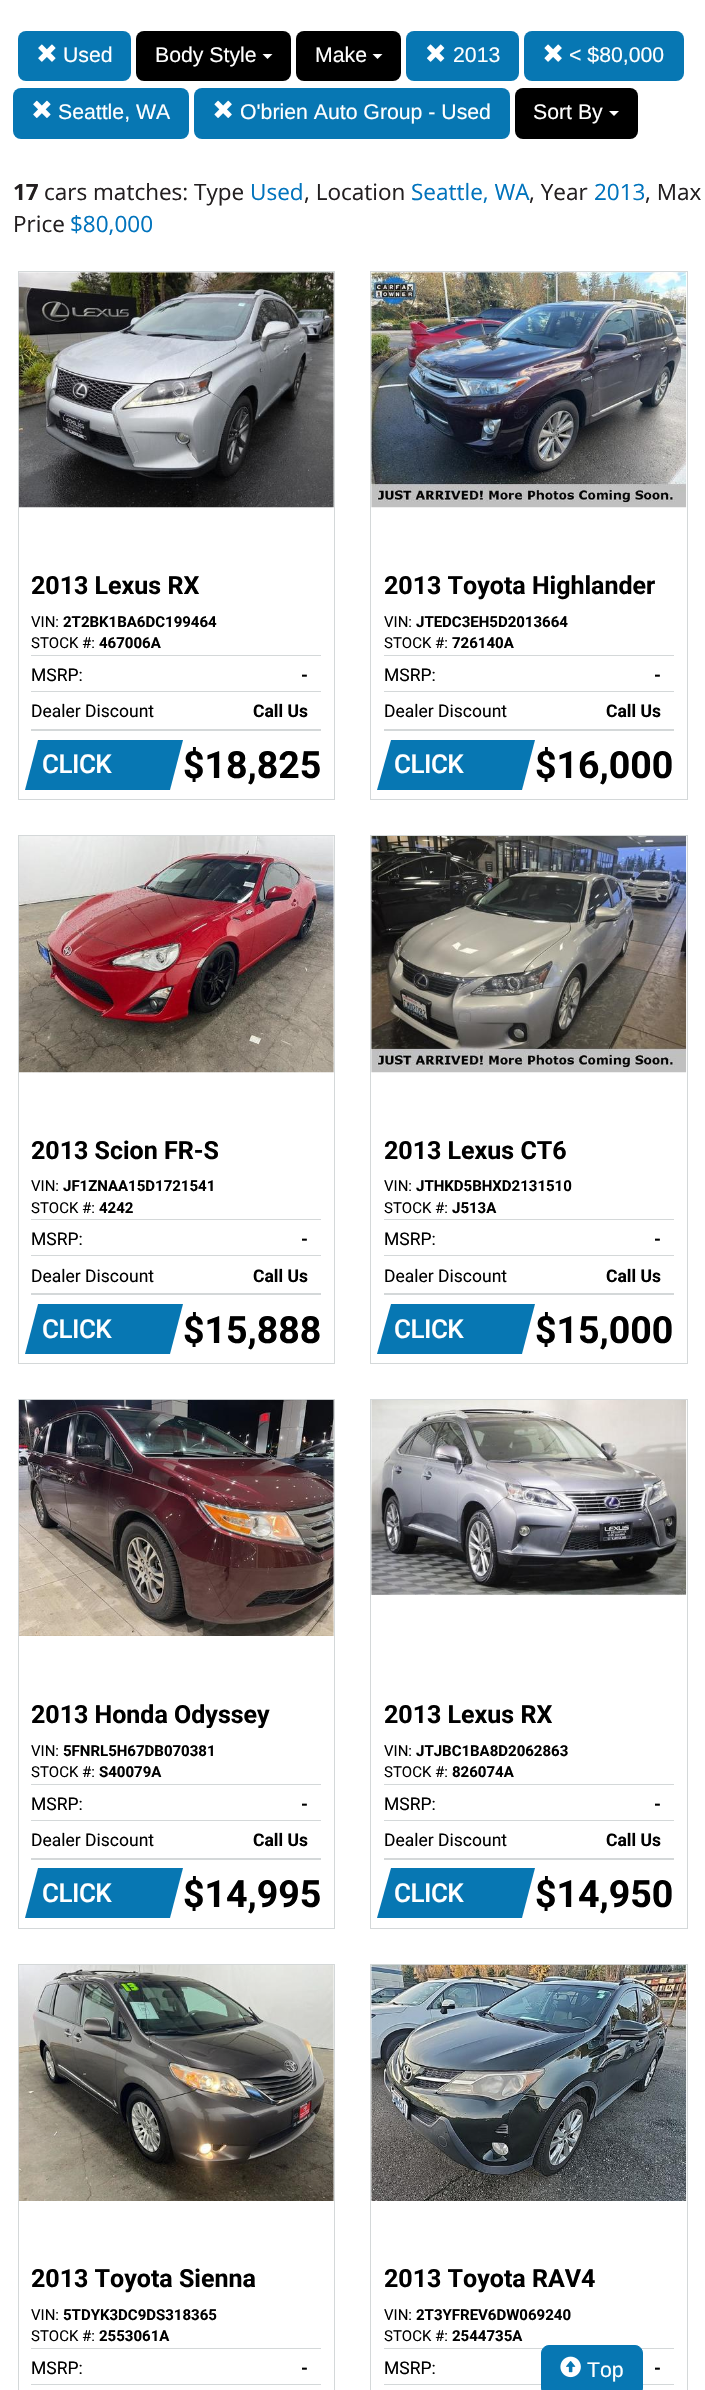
#include "include/core/SkBlurTypes.h"
#include "include/core/SkCanvas.h"
#include "include/core/SkData.h"
#include "include/core/SkFont.h"
#include "include/core/SkFontMgr.h"
#include "include/core/SkImage.h"
#include "include/core/SkMaskFilter.h"
#include "include/core/SkPaint.h"
#include "include/core/SkPathBuilder.h"
#include "include/core/SkTextBlob.h"
#include "include/effects/SkDashPathEffect.h"
#include "include/effects/SkGradientShader.h"
#include "include/utils/SkParsePath.h"

extern sk_sp<SkFontMgr> fontMgr;

void draw(SkCanvas* canvas) {
    SkPaint p;
    p.setAntiAlias(true);
    auto font = [&](const char* family, int weight, float size, bool italic = false) {
        SkFontStyle style(weight, SkFontStyle::kNormal_Width,
            italic ? SkFontStyle::kItalic_Slant : SkFontStyle::kUpright_Slant);
        SkFont result(fontMgr->matchFamilyStyle(family, style), size);
        result.setSubpixel(true);
        return result;
    };
    auto drawTracked = [&](const char* s, float x, float y, const SkFont& font, const SkPaint& ink, float letter, float word) {
        std::vector<SkGlyphID> glyphs(font.countText(s, strlen(s), SkTextEncoding::kUTF8));
        std::vector<float> xs(glyphs.size());
        font.textToGlyphs(s, strlen(s), SkTextEncoding::kUTF8, glyphs);
        font.getXPos(glyphs, xs, x);
        float extra = 0;
        for (size_t i = 0; i < glyphs.size(); i++) {
            xs[i] += extra;
            extra += letter + word * (glyphs[i] == font.unicharToGlyph(' '));
        }
        canvas->drawTextBlob(SkTextBlob::MakeFromPosHGlyphs(glyphs, xs, y, font), 0, 0, ink);
    };
    auto drawPhoto = [&](const char* path, float l, float t, float r, float b) {
        auto image = SkImages::DeferredFromEncodedData(SkData::MakeFromFileName(path));
        canvas->drawImageRect(image, SkRect::MakeLTRB(l, t, r, b), SkSamplingOptions());
    };
    canvas->clear(0xFFFFFFFF);
    p.setColor(0xFF0777B3);
    canvas->drawRoundRect(SkRect::MakeLTRB(18, 31, 131, 81), 8, 8, p);
    drawPhoto("media/1.png", 38, 44, 56, 62);
    auto font1 = font("Liberation Sans", 400, 21.25f);
    p.setColor(0xFFFFFFFF);
    canvas->drawString("Used", 63, 62, font1, p);
    p.setColor(0xFF000000);
    canvas->drawRoundRect(SkRect::MakeLTRB(136, 31, 291, 81), 8, 8, p);
    p.setColor(0xFFFFFFFF);
    canvas->drawString("Body Style", 155, 62, font1, p);
    canvas->drawPath(SkPathBuilder().moveTo(262.5f, 54).lineTo(272.5f, 54).lineTo(267.5f, 59).close().detach(), p);
    p.setColor(0xFF000000);
    canvas->drawRoundRect(SkRect::MakeLTRB(296, 31, 401, 81), 8, 8, p);
    p.setColor(0xFFFFFFFF);
    canvas->drawString("Make", 315, 62, font1, p);
    canvas->drawPath(SkPathBuilder().moveTo(372.5f, 54).lineTo(382.5f, 54).lineTo(377.5f, 59).close().detach(), p);
    p.setColor(0xFF0777B3);
    canvas->drawRoundRect(SkRect::MakeLTRB(406, 31, 519, 81), 8, 8, p);
    drawPhoto("media/2.png", 427, 44, 445, 62);
    p.setColor(0xFFFFFFFF);
    canvas->drawString("2013", 453, 62, font1, p);
    p.setColor(0xFF0777B3);
    canvas->drawRoundRect(SkRect::MakeLTRB(524, 31, 684, 81), 8, 8, p);
    drawPhoto("media/3.png", 544, 44, 562, 62);
    p.setColor(0xFFFFFFFF);
    canvas->drawString("< $80,000", 569, 62, font1, p);
    p.setColor(0xFF0777B3);
    canvas->drawRoundRect(SkRect::MakeLTRB(13, 88, 189, 139), 8, 8, p);
    drawPhoto("media/4.png", 33, 100, 51, 118);
    p.setColor(0xFFFFFFFF);
    canvas->drawString("Seattle, WA", 58, 119, font1, p);
    p.setColor(0xFF0777B3);
    canvas->drawRoundRect(SkRect::MakeLTRB(194, 88, 510, 139), 8, 8, p);
    drawPhoto("media/5.png", 214, 100, 232, 118);
    p.setColor(0xFFFFFFFF);
    canvas->drawString("O'brien Auto Group - Used", 240, 119, font1, p);
    p.setColor(0xFF000000);
    canvas->drawRoundRect(SkRect::MakeLTRB(515, 88, 638, 139), 8, 8, p);
    p.setColor(0xFFFFFFFF);
    canvas->drawString("Sort By", 533, 119, font1, p);
    canvas->drawPath(SkPathBuilder().moveTo(609, 111).lineTo(619, 111).lineTo(614, 116).close().detach(), p);
    auto font2 = font("Open Sans", 700, 22.5f);
    p.setColor(0xFF231F20);
    canvas->drawString("17", 13, 200, font2, p);
    auto font3 = font("Open Sans", 400, 22.5f);
    canvas->drawString("cars matches: Type", 44, 200, font3, p);
    p.setColor(0xFF0073BD);
    canvas->drawString("Used", 250, 200, font3, p);
    p.setColor(0xFF231F20);
    canvas->drawString(", Location", 304, 200, font3, p);
    p.setColor(0xFF0073BD);
    canvas->drawString("Seattle, WA", 411, 200, font3, p);
    p.setColor(0xFF231F20);
    canvas->drawString(", Year", 529, 200, font3, p);
    p.setColor(0xFF0073BD);
    canvas->drawString("2013", 594, 200, font3, p);
    p.setColor(0xFF231F20);
    canvas->drawString(", Max", 645, 200, font3, p);
    canvas->drawString("Price", 13, 232, font3, p);
    p.setColor(0xFF0073BD);
    canvas->drawString("$80,000", 70, 232, font3, p);
    p.setStyle(SkPaint::kStroke_Style);
    p.setStrokeWidth(1);
    p.setColor(0xFFD4D8D9);
    canvas->drawRect(SkRect::MakeLTRB(18.5f, 271.5f, 334.5f, 799.5f), p);
    drawPhoto("media/6.png", 18, 272, 334, 508);
    auto font4 = font("Roboto", 700, 25);
    p.setStyle(SkPaint::kFill_Style);
    p.setColor(0xFF000000);
    canvas->drawString("2013 Lexus RX", 31, 594, font4, p);
    auto font5 = font("Roboto", 400, 15);
    canvas->drawString("VIN:", 31, 627, font5, p);
    auto font6 = font("Roboto", 700, 15);
    canvas->drawString("2T2BK1BA6DC199464", 63, 627, font6, p);
    canvas->drawString("STOCK #:", 31, 648, font5, p);
    canvas->drawString("467006A", 99, 648, font6, p);
    p.setColor(0xFFD4D8D9);
    canvas->drawRect(SkRect::MakeLTRB(31, 655, 321, 656), p);
    canvas->drawRect(SkRect::MakeLTRB(31, 691, 321, 692), p);
    auto font7 = font("Roboto", 400, 17.5f);
    p.setColor(0xFF000000);
    canvas->drawString("MSRP:", 31, 681, font7, p);
    auto font8 = font("Roboto", 700, 17.5f);
    canvas->drawString("-", 301, 681, font8, p);
    p.setColor(0xFFD4D8D9);
    canvas->drawRect(SkRect::MakeLTRB(31, 729, 321, 731), p);
    p.setColor(0xFF000000);
    canvas->drawString("Dealer Discount", 31, 717, font7, p);
    canvas->drawString("Call Us", 253, 717, font8, p);
    p.setColor(0xFF0777B3);
    canvas->drawPath(SkPathBuilder().moveTo(38, 740).lineTo(183, 740).lineTo(170, 790).lineTo(25, 790).close().detach(), p);
    auto font9 = font("Roboto", 500, 26);
    p.setColor(0xFFFFFFFF);
    drawTracked("CLICK", 42, 773, font9, p, -0.5f, 0);
    auto font10 = font("Roboto", 700, 37.5f);
    p.setColor(0xFF000000);
    canvas->drawString("$18,825", 183, 778, font10, p);
    p.setStyle(SkPaint::kStroke_Style);
    p.setColor(0xFFD4D8D9);
    canvas->drawRect(SkRect::MakeLTRB(370.5f, 271.5f, 687.5f, 799.5f), p);
    drawPhoto("media/7.png", 371, 272, 687, 508);
    p.setStyle(SkPaint::kFill_Style);
    p.setColor(0xFF000000);
    canvas->drawString("2013 Toyota Highlander", 384, 594, font4, p);
    canvas->drawString("VIN:", 384, 627, font5, p);
    canvas->drawString("JTEDC3EH5D2013664", 416, 627, font6, p);
    canvas->drawString("STOCK #:", 384, 648, font5, p);
    canvas->drawString("726140A", 452, 648, font6, p);
    p.setColor(0xFFD4D8D9);
    canvas->drawRect(SkRect::MakeLTRB(384, 655, 674, 656), p);
    canvas->drawRect(SkRect::MakeLTRB(384, 691, 674, 692), p);
    p.setColor(0xFF000000);
    canvas->drawString("MSRP:", 384, 681, font7, p);
    canvas->drawString("-", 654, 681, font8, p);
    p.setColor(0xFFD4D8D9);
    canvas->drawRect(SkRect::MakeLTRB(384, 729, 674, 731), p);
    p.setColor(0xFF000000);
    canvas->drawString("Dealer Discount", 384, 717, font7, p);
    canvas->drawString("Call Us", 606, 717, font8, p);
    p.setColor(0xFF0777B3);
    canvas->drawPath(SkPathBuilder().moveTo(391, 740).lineTo(535, 740).lineTo(522, 790).lineTo(377, 790).close().detach(), p);
    p.setColor(0xFFFFFFFF);
    drawTracked("CLICK", 394, 773, font9, p, -0.5f, 0);
    p.setColor(0xFF000000);
    canvas->drawString("$16,000", 535, 778, font10, p);
    p.setStyle(SkPaint::kStroke_Style);
    p.setColor(0xFFD4D8D9);
    canvas->drawRect(SkRect::MakeLTRB(18.5f, 835.5f, 334.5f, 1363.5f), p);
    drawPhoto("media/8.png", 18, 836, 334, 1073);
    p.setStyle(SkPaint::kFill_Style);
    p.setColor(0xFF000000);
    canvas->drawString("2013 Scion FR-S", 31, 1159, font4, p);
    canvas->drawString("VIN:", 31, 1191, font5, p);
    canvas->drawString("JF1ZNAA15D1721541", 63, 1191, font6, p);
    canvas->drawString("STOCK #:", 31, 1213, font5, p);
    canvas->drawString("4242", 99, 1213, font6, p);
    p.setColor(0xFFD4D8D9);
    canvas->drawRect(SkRect::MakeLTRB(31, 1219, 321, 1220), p);
    canvas->drawRect(SkRect::MakeLTRB(31, 1255, 321, 1256), p);
    p.setColor(0xFF000000);
    canvas->drawString("MSRP:", 31, 1245, font7, p);
    canvas->drawString("-", 301, 1245, font8, p);
    p.setColor(0xFFD4D8D9);
    canvas->drawRect(SkRect::MakeLTRB(31, 1293, 321, 1295), p);
    p.setColor(0xFF000000);
    canvas->drawString("Dealer Discount", 31, 1282, font7, p);
    canvas->drawString("Call Us", 253, 1282, font8, p);
    p.setColor(0xFF0777B3);
    canvas->drawPath(SkPathBuilder().moveTo(38, 1304).lineTo(183, 1304).lineTo(170, 1354).lineTo(25, 1354).close().detach(), p);
    p.setColor(0xFFFFFFFF);
    drawTracked("CLICK", 42, 1338, font9, p, -0.5f, 0);
    p.setColor(0xFF000000);
    canvas->drawString("$15,888", 183, 1343, font10, p);
    p.setStyle(SkPaint::kStroke_Style);
    p.setColor(0xFFD4D8D9);
    canvas->drawRect(SkRect::MakeLTRB(370.5f, 835.5f, 687.5f, 1363.5f), p);
    drawPhoto("media/9.png", 371, 836, 687, 1073);
    p.setStyle(SkPaint::kFill_Style);
    p.setColor(0xFF000000);
    canvas->drawString("2013 Lexus CT6", 384, 1159, font4, p);
    canvas->drawString("VIN:", 384, 1191, font5, p);
    canvas->drawString("JTHKD5BHXD2131510", 416, 1191, font6, p);
    canvas->drawString("STOCK #:", 384, 1213, font5, p);
    canvas->drawString("J513A", 452, 1213, font6, p);
    p.setColor(0xFFD4D8D9);
    canvas->drawRect(SkRect::MakeLTRB(384, 1219, 674, 1220), p);
    canvas->drawRect(SkRect::MakeLTRB(384, 1255, 674, 1256), p);
    p.setColor(0xFF000000);
    canvas->drawString("MSRP:", 384, 1245, font7, p);
    canvas->drawString("-", 654, 1245, font8, p);
    p.setColor(0xFFD4D8D9);
    canvas->drawRect(SkRect::MakeLTRB(384, 1293, 674, 1295), p);
    p.setColor(0xFF000000);
    canvas->drawString("Dealer Discount", 384, 1282, font7, p);
    canvas->drawString("Call Us", 606, 1282, font8, p);
    p.setColor(0xFF0777B3);
    canvas->drawPath(SkPathBuilder().moveTo(391, 1304).lineTo(535, 1304).lineTo(522, 1354).lineTo(377, 1354).close().detach(), p);
    p.setColor(0xFFFFFFFF);
    drawTracked("CLICK", 394, 1338, font9, p, -0.5f, 0);
    p.setColor(0xFF000000);
    canvas->drawString("$15,000", 535, 1343, font10, p);
    p.setStyle(SkPaint::kStroke_Style);
    p.setColor(0xFFD4D8D9);
    canvas->drawRect(SkRect::MakeLTRB(18.5f, 1399.5f, 334.5f, 1928.5f), p);
    drawPhoto("media/10.png", 18, 1399, 334, 1636);
    canvas->save();
    canvas->clipRect(SkRect::MakeLTRB(31, 1700, 270, 1728));
    p.setStyle(SkPaint::kFill_Style);
    p.setColor(0xFF000000);
    canvas->drawString("2013 Honda Odyssey", 31, 1723, font4, p);
    canvas->restore();
    canvas->drawString("VIN:", 31, 1756, font5, p);
    canvas->drawString("5FNRL5H67DB070381", 63, 1756, font6, p);
    canvas->drawString("STOCK #:", 31, 1777, font5, p);
    canvas->drawString("S40079A", 99, 1777, font6, p);
    p.setColor(0xFFD4D8D9);
    canvas->drawRect(SkRect::MakeLTRB(31, 1784, 321, 1785), p);
    canvas->drawRect(SkRect::MakeLTRB(31, 1820, 321, 1821), p);
    p.setColor(0xFF000000);
    canvas->drawString("MSRP:", 31, 1810, font7, p);
    canvas->drawString("-", 301, 1810, font8, p);
    p.setColor(0xFFD4D8D9);
    canvas->drawRect(SkRect::MakeLTRB(31, 1858, 321, 1860), p);
    p.setColor(0xFF000000);
    canvas->drawString("Dealer Discount", 31, 1846, font7, p);
    canvas->drawString("Call Us", 253, 1846, font8, p);
    p.setColor(0xFF0777B3);
    canvas->drawPath(SkPathBuilder().moveTo(38, 1868).lineTo(183, 1868).lineTo(170, 1918).lineTo(25, 1918).close().detach(), p);
    p.setColor(0xFFFFFFFF);
    drawTracked("CLICK", 42, 1902, font9, p, -0.5f, 0);
    p.setColor(0xFF000000);
    canvas->drawString("$14,995", 183, 1907, font10, p);
    p.setStyle(SkPaint::kStroke_Style);
    p.setColor(0xFFD4D8D9);
    canvas->drawRect(SkRect::MakeLTRB(370.5f, 1399.5f, 687.5f, 1928.5f), p);
    drawPhoto("media/11.png", 371, 1400, 687, 1595);
    p.setStyle(SkPaint::kFill_Style);
    p.setColor(0xFF000000);
    canvas->drawString("2013 Lexus RX", 384, 1723, font4, p);
    canvas->drawString("VIN:", 384, 1756, font5, p);
    canvas->drawString("JTJBC1BA8D2062863", 416, 1756, font6, p);
    canvas->drawString("STOCK #:", 384, 1777, font5, p);
    canvas->drawString("826074A", 452, 1777, font6, p);
    p.setColor(0xFFD4D8D9);
    canvas->drawRect(SkRect::MakeLTRB(384, 1784, 674, 1785), p);
    canvas->drawRect(SkRect::MakeLTRB(384, 1820, 674, 1821), p);
    p.setColor(0xFF000000);
    canvas->drawString("MSRP:", 384, 1810, font7, p);
    canvas->drawString("-", 654, 1810, font8, p);
    p.setColor(0xFFD4D8D9);
    canvas->drawRect(SkRect::MakeLTRB(384, 1858, 674, 1860), p);
    p.setColor(0xFF000000);
    canvas->drawString("Dealer Discount", 384, 1846, font7, p);
    canvas->drawString("Call Us", 606, 1846, font8, p);
    p.setColor(0xFF0777B3);
    canvas->drawPath(SkPathBuilder().moveTo(391, 1868).lineTo(535, 1868).lineTo(522, 1918).lineTo(377, 1918).close().detach(), p);
    p.setColor(0xFFFFFFFF);
    drawTracked("CLICK", 394, 1902, font9, p, -0.5f, 0);
    p.setColor(0xFF000000);
    canvas->drawString("$14,950", 535, 1907, font10, p);
    p.setStyle(SkPaint::kStroke_Style);
    p.setColor(0xFFD4D8D9);
    canvas->drawRect(SkRect::MakeLTRB(18.5f, 1964.5f, 334.5f, 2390.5f), p);
    drawPhoto("media/12.png", 18, 1965, 334, 2201);
    p.setStyle(SkPaint::kFill_Style);
    p.setColor(0xFF000000);
    canvas->drawString("2013 Toyota Sienna", 31, 2287, font4, p);
    canvas->drawString("VIN:", 31, 2320, font5, p);
    canvas->drawString("5TDYK3DC9DS318365", 63, 2320, font6, p);
    canvas->drawString("STOCK #:", 31, 2341, font5, p);
    canvas->drawString("2553061A", 99, 2341, font6, p);
    p.setColor(0xFFD4D8D9);
    canvas->drawRect(SkRect::MakeLTRB(31, 2348, 321, 2349), p);
    canvas->drawRect(SkRect::MakeLTRB(31, 2384, 321, 2385), p);
    p.setColor(0xFF000000);
    canvas->drawString("MSRP:", 31, 2374, font7, p);
    canvas->drawString("-", 301, 2374, font8, p);
    p.setStyle(SkPaint::kStroke_Style);
    p.setColor(0xFFD4D8D9);
    canvas->drawRect(SkRect::MakeLTRB(370.5f, 1964.5f, 687.5f, 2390.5f), p);
    drawPhoto("media/13.png", 371, 1964, 687, 2201);
    p.setStyle(SkPaint::kFill_Style);
    p.setColor(0xFF000000);
    canvas->drawString("2013 Toyota RAV4", 384, 2287, font4, p);
    canvas->drawString("VIN:", 384, 2320, font5, p);
    canvas->drawString("2T3YFREV6DW069240", 416, 2320, font6, p);
    canvas->drawString("STOCK #:", 384, 2341, font5, p);
    canvas->drawString("2544735A", 452, 2341, font6, p);
    p.setColor(0xFFD4D8D9);
    canvas->drawRect(SkRect::MakeLTRB(384, 2348, 674, 2349), p);
    canvas->drawRect(SkRect::MakeLTRB(384, 2384, 674, 2385), p);
    p.setColor(0xFF000000);
    canvas->drawString("MSRP:", 384, 2374, font7, p);
    canvas->drawString("-", 654, 2374, font8, p);
    p.setColor(0xFF0777B3);
    canvas->drawRoundRect(SkRect::MakeLTRB(541.5f, 2345.5f, 642.5f, 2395.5f), 7.5f, 7.5f, p);
    p.setStyle(SkPaint::kStroke_Style);
    canvas->drawRoundRect(SkRect::MakeLTRB(541.5f, 2345.5f, 642.5f, 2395.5f), 7.5f, 7.5f, p);
    drawPhoto("media/14.png", 560, 2356, 581, 2378);
    p.setStyle(SkPaint::kFill_Style);
    p.setColor(0xFFFFFFFF);
    canvas->drawString("Top", 587, 2377, font1, p);
}
